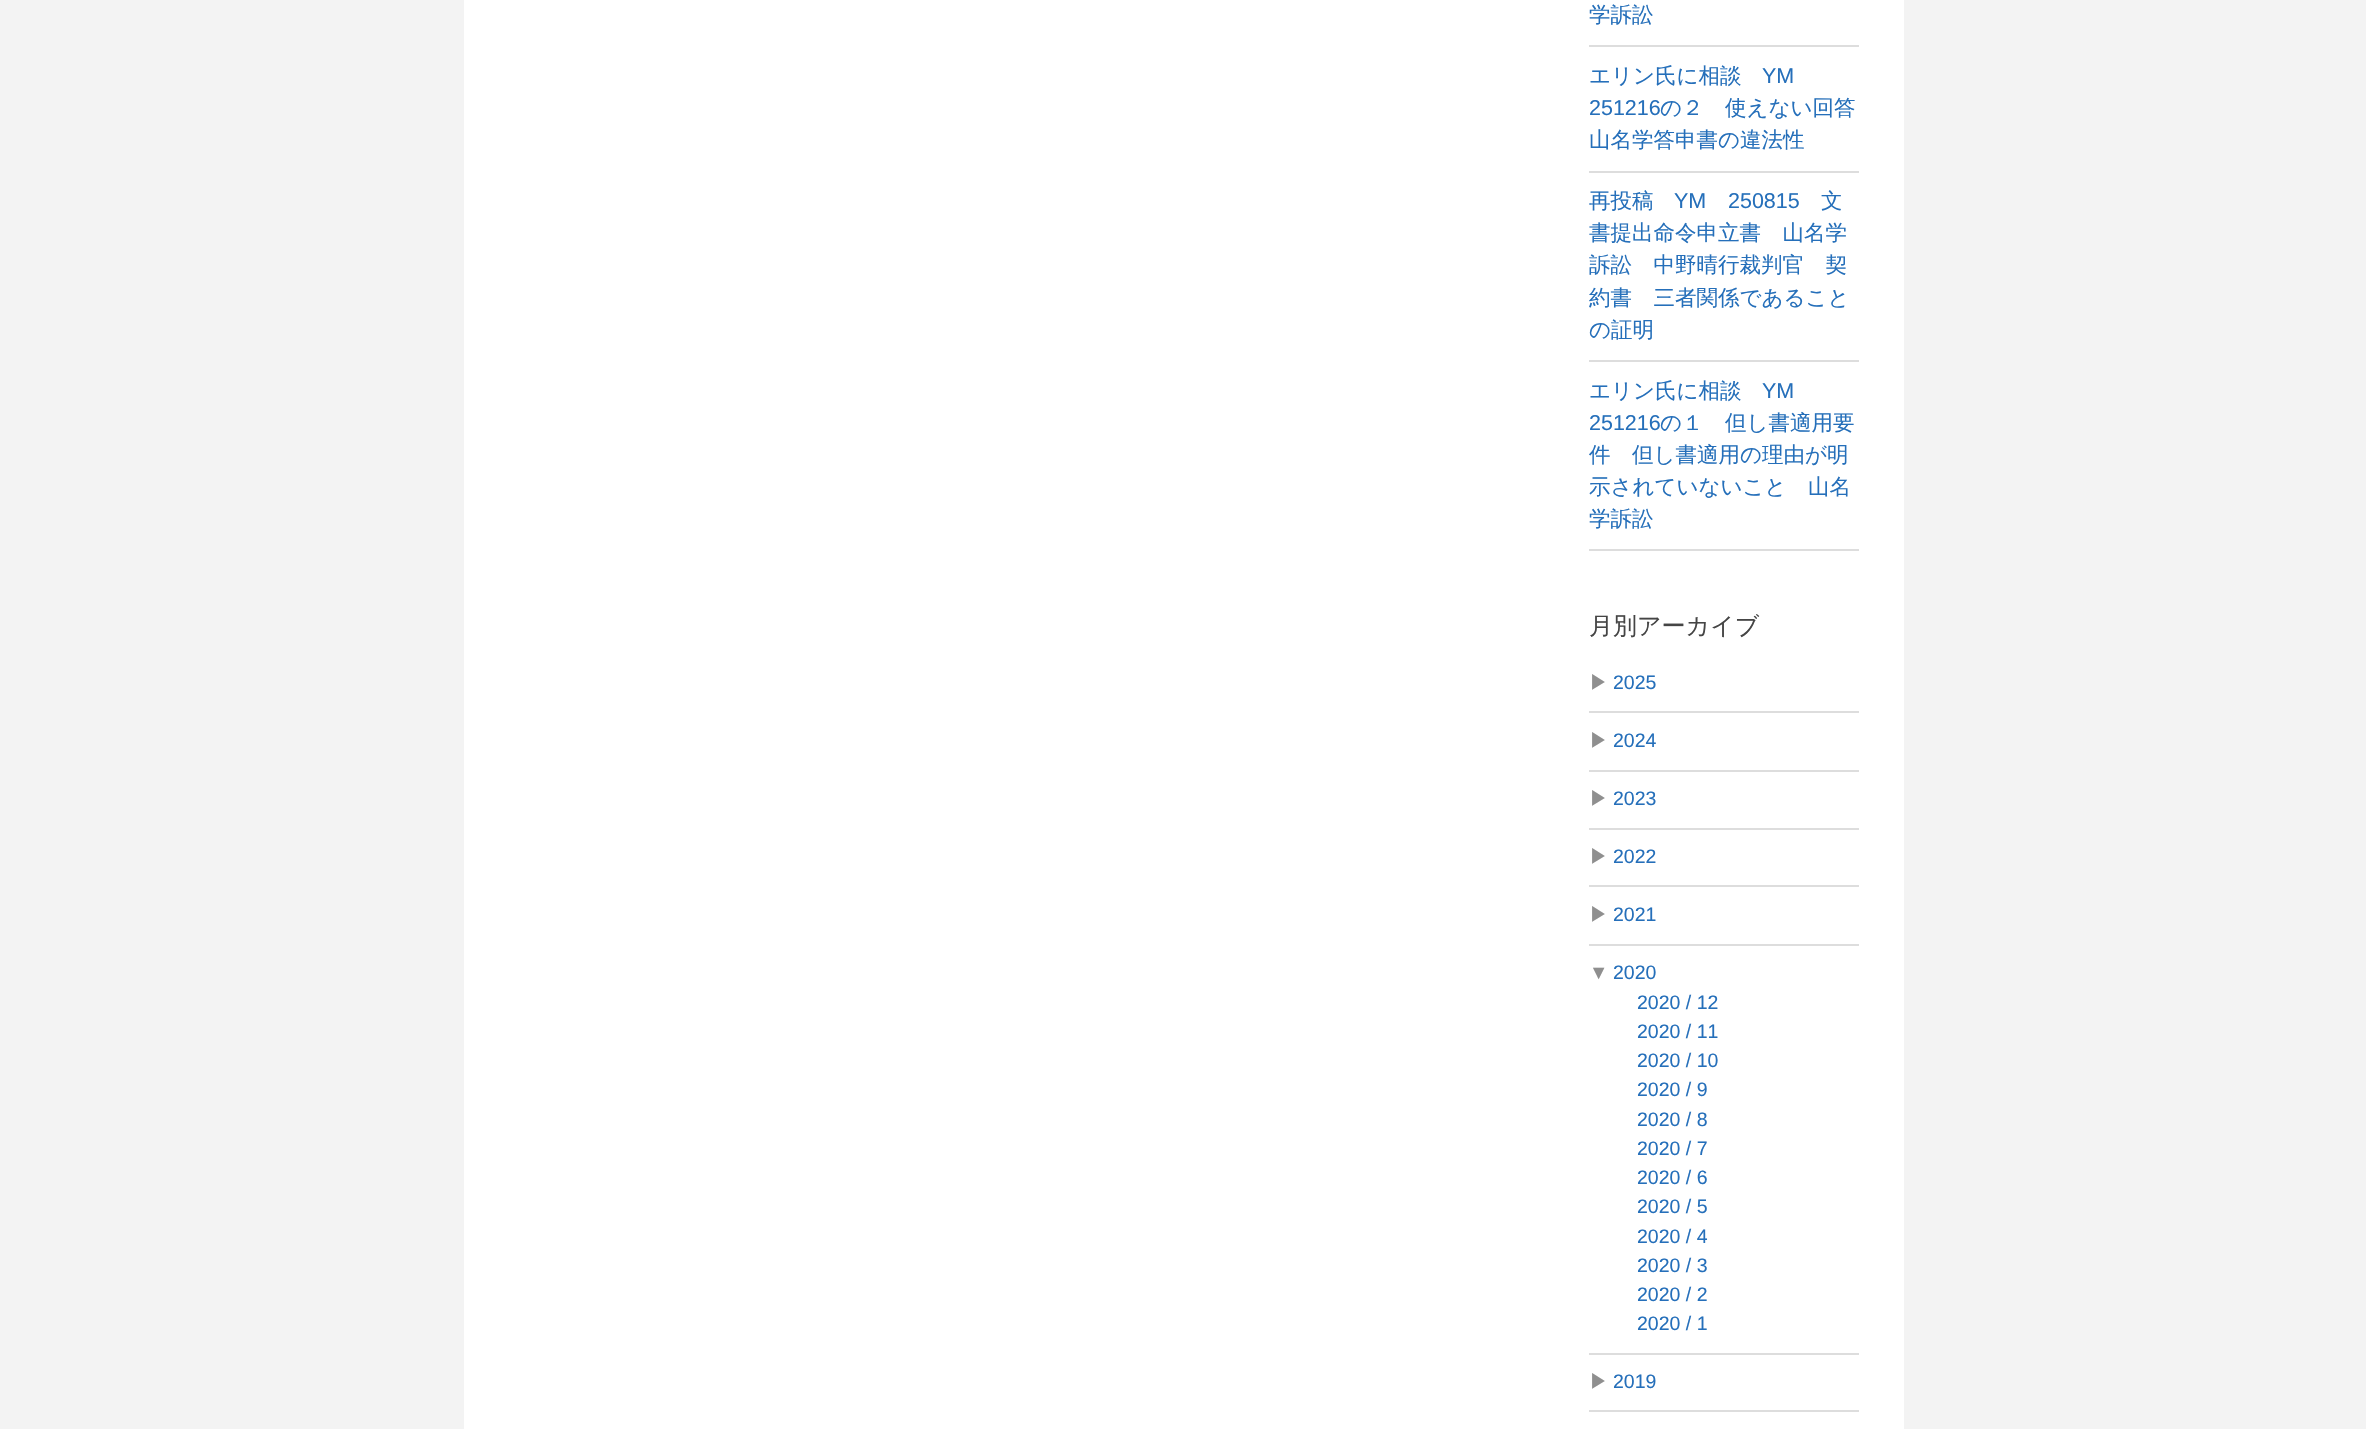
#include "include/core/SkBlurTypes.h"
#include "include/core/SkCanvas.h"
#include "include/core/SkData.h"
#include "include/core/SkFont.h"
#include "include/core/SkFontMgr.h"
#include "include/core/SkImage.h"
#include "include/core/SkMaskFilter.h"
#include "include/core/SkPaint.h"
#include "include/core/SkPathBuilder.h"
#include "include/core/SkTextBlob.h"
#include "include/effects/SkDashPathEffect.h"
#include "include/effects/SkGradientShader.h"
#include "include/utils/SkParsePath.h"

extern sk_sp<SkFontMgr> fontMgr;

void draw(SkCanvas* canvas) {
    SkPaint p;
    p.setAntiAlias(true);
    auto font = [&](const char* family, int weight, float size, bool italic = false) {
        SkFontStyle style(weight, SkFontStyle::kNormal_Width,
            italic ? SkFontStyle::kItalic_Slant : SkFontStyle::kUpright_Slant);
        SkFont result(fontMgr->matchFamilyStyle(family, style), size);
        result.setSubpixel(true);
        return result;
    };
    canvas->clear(0xFFF3F3F3);
    p.setColor(0xFFFFFFFF);
    canvas->drawRect(SkRect::MakeLTRB(464, 0, 1904, 1429), p);
    p.setColor(0xFFDDDDDD);
    canvas->drawRect(SkRect::MakeLTRB(1589, 45, 1859, 47), p);
    auto font1 = font("WenQuanYi Zen Hei", 500, 21.5f);
    p.setColor(0xFF256FBA);
    canvas->drawString("学訴訟", 1589, 22, font1, p);
    p.setColor(0xFFDDDDDD);
    canvas->drawRect(SkRect::MakeLTRB(1589, 171, 1859, 173), p);
    p.setColor(0xFF256FBA);
    canvas->drawString("エリン氏に相談", 1589, 83, font1, p);
    auto font2 = font("Liberation Sans", 400, 21.5f);
    canvas->drawString("YM", 1762, 83, font2, p);
    canvas->drawString("251216", 1589, 115, font2, p);
    canvas->drawString("の２　使えない回答", 1660, 115, font1, p);
    canvas->drawString("山名学答申書の違法性", 1589, 147, font1, p);
    p.setColor(0xFFDDDDDD);
    canvas->drawRect(SkRect::MakeLTRB(1589, 360, 1859, 362), p);
    p.setColor(0xFF256FBA);
    canvas->drawString("再投稿", 1589, 208, font1, p);
    canvas->drawString("YM", 1674, 208, font2, p);
    canvas->drawString("250815", 1728, 208, font2, p);
    {
        const struct { const char* s; float x, y; } items[] = {
            {"文", 1821, 208},
            {"書提出命令申立書　山名学", 1589, 240},
            {"訴訟　中野晴行裁判官　契", 1589, 272},
            {"約書　三者関係であること", 1589, 305},
            {"の証明", 1589, 337},
        };
        for (auto [s, x, y] : items) {
            canvas->drawString(s, x, y, font1, p);
        }
    }
    p.setColor(0xFFDDDDDD);
    canvas->drawRect(SkRect::MakeLTRB(1589, 549, 1859, 551), p);
    p.setColor(0xFF256FBA);
    canvas->drawString("エリン氏に相談", 1589, 398, font1, p);
    canvas->drawString("YM", 1762, 398, font2, p);
    canvas->drawString("251216", 1589, 430, font2, p);
    {
        const struct { const char* s; float x, y; } items[] = {
            {"の１　但し書適用要", 1660, 430},
            {"件　但し書適用の理由が明", 1589, 462},
            {"示されていないこと　山名", 1589, 494},
            {"学訴訟", 1589, 526},
        };
        for (auto [s, x, y] : items) {
            canvas->drawString(s, x, y, font1, p);
        }
    }
    auto font3 = font("WenQuanYi Zen Hei", 500, 24);
    p.setColor(0xFF454545);
    canvas->drawString("月別アーカイブ", 1589, 634, font3, p);
    p.setColor(0xFFDDDDDD);
    canvas->drawRect(SkRect::MakeLTRB(1589, 711, 1859, 713), p);
    auto font4 = font("WenQuanYi Zen Hei", 500, 19.5f);
    p.setColor(0xFF8F8F8F);
    canvas->drawString("▶", 1589, 689, font4, p);
    auto font5 = font("Liberation Sans", 400, 19.5f);
    p.setColor(0xFF256FBA);
    canvas->drawString("2025", 1613, 689, font5, p);
    p.setColor(0xFFDDDDDD);
    canvas->drawRect(SkRect::MakeLTRB(1589, 770, 1859, 772), p);
    p.setColor(0xFF8F8F8F);
    canvas->drawString("▶", 1589, 747, font4, p);
    p.setColor(0xFF256FBA);
    canvas->drawString("2024", 1613, 747, font5, p);
    p.setColor(0xFFDDDDDD);
    canvas->drawRect(SkRect::MakeLTRB(1589, 828, 1859, 830), p);
    p.setColor(0xFF8F8F8F);
    canvas->drawString("▶", 1589, 805, font4, p);
    p.setColor(0xFF256FBA);
    canvas->drawString("2023", 1613, 805, font5, p);
    p.setColor(0xFFDDDDDD);
    canvas->drawRect(SkRect::MakeLTRB(1589, 885, 1859, 887), p);
    p.setColor(0xFF8F8F8F);
    canvas->drawString("▶", 1589, 863, font4, p);
    p.setColor(0xFF256FBA);
    canvas->drawString("2022", 1613, 863, font5, p);
    p.setColor(0xFFDDDDDD);
    canvas->drawRect(SkRect::MakeLTRB(1589, 944, 1859, 946), p);
    p.setColor(0xFF8F8F8F);
    canvas->drawString("▶", 1589, 921, font4, p);
    p.setColor(0xFF256FBA);
    canvas->drawString("2021", 1613, 921, font5, p);
    p.setColor(0xFFDDDDDD);
    canvas->drawRect(SkRect::MakeLTRB(1589, 1353, 1859, 1355), p);
    p.setColor(0xFF8F8F8F);
    canvas->drawString("▼", 1589, 979, font5, p);
    p.setColor(0xFF256FBA);
    {
        const struct { const char* s; float x, y; } items[] = {
            {"2020", 1613, 979},
            {"2020 / 12", 1637, 1009},
            {"2020 / 11", 1637, 1038},
            {"2020 / 10", 1637, 1067},
            {"2020 / 9", 1637, 1096},
            {"2020 / 8", 1637, 1126},
            {"2020 / 7", 1637, 1155},
            {"2020 / 6", 1637, 1184},
            {"2020 / 5", 1637, 1213},
            {"2020 / 4", 1637, 1243},
            {"2020 / 3", 1637, 1272},
            {"2020 / 2", 1637, 1301},
            {"2020 / 1", 1637, 1330},
        };
        for (auto [s, x, y] : items) {
            canvas->drawString(s, x, y, font5, p);
        }
    }
    p.setColor(0xFFDDDDDD);
    canvas->drawRect(SkRect::MakeLTRB(1589, 1410, 1859, 1412), p);
    p.setColor(0xFF8F8F8F);
    canvas->drawString("▶", 1589, 1388, font4, p);
    p.setColor(0xFF256FBA);
    canvas->drawString("2019", 1613, 1388, font5, p);
}
